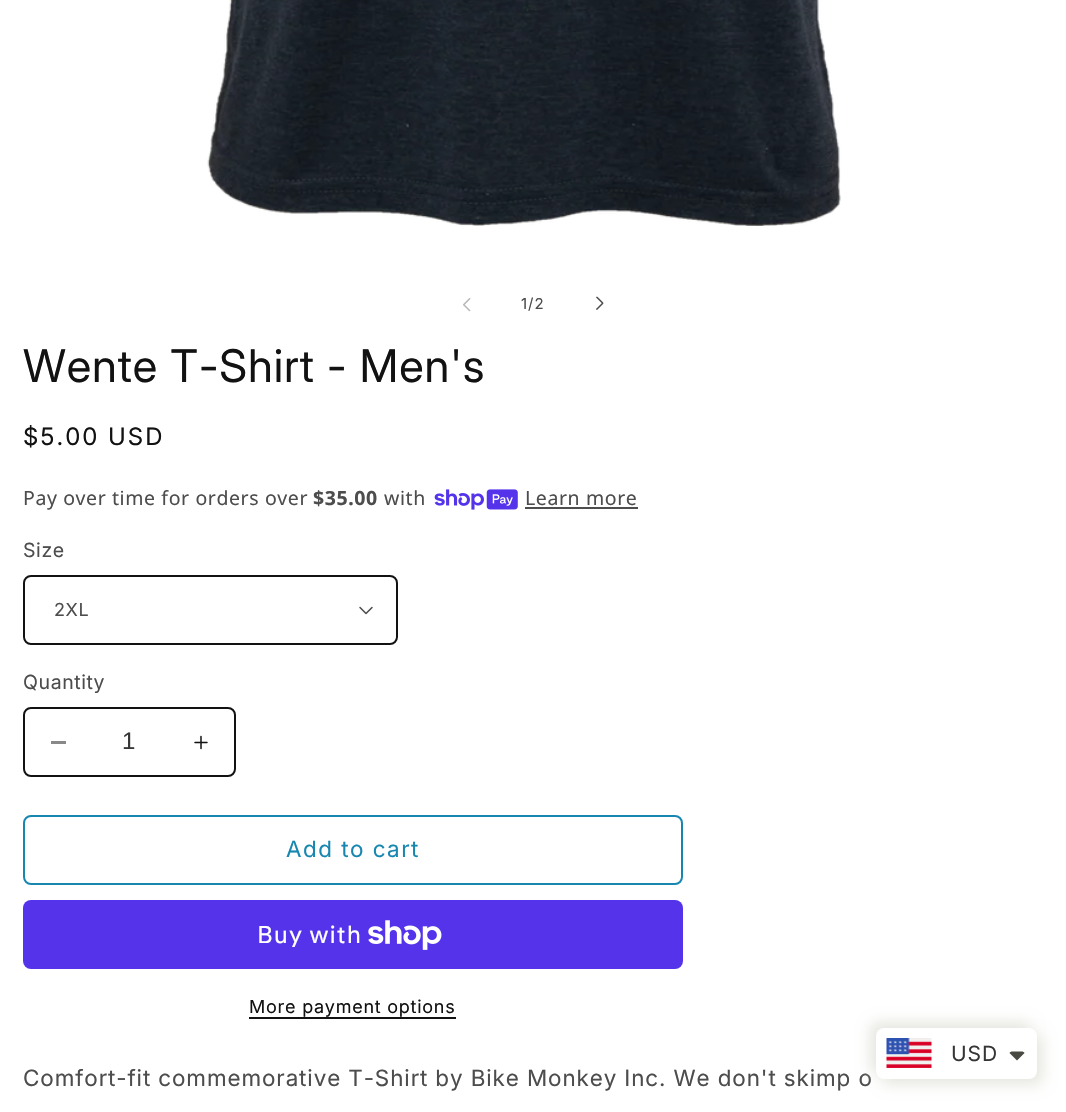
#include "include/core/SkBlurTypes.h"
#include "include/core/SkCanvas.h"
#include "include/core/SkData.h"
#include "include/core/SkFont.h"
#include "include/core/SkFontMgr.h"
#include "include/core/SkImage.h"
#include "include/core/SkMaskFilter.h"
#include "include/core/SkPaint.h"
#include "include/core/SkPathBuilder.h"
#include "include/core/SkTextBlob.h"
#include "include/effects/SkDashPathEffect.h"
#include "include/effects/SkGradientShader.h"
#include "include/utils/SkParsePath.h"

extern sk_sp<SkFontMgr> fontMgr;

void draw(SkCanvas* canvas) {
    SkPaint p;
    p.setAntiAlias(true);
    auto font = [&](const char* family, int weight, float size, bool italic = false) {
        SkFontStyle style(weight, SkFontStyle::kNormal_Width,
            italic ? SkFontStyle::kItalic_Slant : SkFontStyle::kUpright_Slant);
        SkFont result(fontMgr->matchFamilyStyle(family, style), size);
        result.setSubpixel(true);
        return result;
    };
    auto drawTracked = [&](const char* s, float x, float y, const SkFont& font, const SkPaint& ink, float letter, float word) {
        std::vector<SkGlyphID> glyphs(font.countText(s, strlen(s), SkTextEncoding::kUTF8));
        std::vector<float> xs(glyphs.size());
        font.textToGlyphs(s, strlen(s), SkTextEncoding::kUTF8, glyphs);
        font.getXPos(glyphs, xs, x);
        float extra = 0;
        for (size_t i = 0; i < glyphs.size(); i++) {
            xs[i] += extra;
            extra += letter + word * (glyphs[i] == font.unicharToGlyph(' '));
        }
        canvas->drawTextBlob(SkTextBlob::MakeFromPosHGlyphs(glyphs, xs, y, font), 0, 0, ink);
    };
    auto drawPhoto = [&](const char* path, float l, float t, float r, float b) {
        auto image = SkImages::DeferredFromEncodedData(SkData::MakeFromFileName(path));
        canvas->drawImageRect(image, SkRect::MakeLTRB(l, t, r, b), SkSamplingOptions());
    };
    canvas->clear(0xFFFFFFFF);
    drawPhoto("media/1.png", 207, 0, 841, 226);
    drawPhoto("media/2.png", 463, 298, 471, 312);
    auto font1 = font("Inter", 400, 15);
    p.setColor(0xFF4D4D4D);
    drawTracked("1/2", 521, 309, font1, p, 1, 0);
    drawPhoto("media/3.png", 596, 296, 604, 310);
    auto font2 = font("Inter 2", 400, 45);
    p.setColor(0xFF121212);
    drawTracked("Wente T-Shirt - Men's", 23, 382, font2, p, 0.9f, 0);
    auto font3 = font("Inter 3", 400, 24);
    drawTracked("$5.00 USD", 23, 445, font3, p, 2, 0);
    auto font4 = font("Noto Sans", 400, 19.5f);
    p.setColor(0xFF4D4D4D);
    drawTracked("Pay over time for orders over", 23, 505, font4, p, 0.6f, 0);
    auto font5 = font("Noto Sans", 700, 19.5f);
    drawTracked("$35.00", 313, 505, font5, p, 0.6f, 0);
    drawTracked("with", 384, 505, font4, p, 0.6f, 0);
    drawPhoto("media/4.png", 434, 489, 518, 510);
    drawTracked("Learn more", 525, 505, font4, p, 0.6f, 0);
    canvas->drawRect(SkRect::MakeLTRB(525, 507, 638, 509), p);
    auto font6 = font("Inter", 400, 19.5f);
    drawTracked("Size", 23, 557, font6, p, 0.6f, 0);
    drawPhoto("media/5.png", 359, 606, 373, 615);
    p.setStyle(SkPaint::kStroke_Style);
    p.setStrokeWidth(2);
    p.setColor(0xFF121212);
    canvas->drawRoundRect(SkRect::MakeLTRB(24, 576, 397, 644), 7, 7, p);
    auto font7 = font("Inter", 400, 18);
    p.setStyle(SkPaint::kFill_Style);
    p.setColor(0xFF4D4D4D);
    drawTracked("2XL", 54, 616, font7, p, 0.6f, 0);
    drawTracked("Quantity", 23, 689, font6, p, 0.6f, 0);
    p.setColor(0xFF898989);
    canvas->drawRect(SkRect::MakeLTRB(51, 741, 66, 744), p);
    drawPhoto("media/6.png", 194, 735, 208, 750);
    p.setStyle(SkPaint::kStroke_Style);
    p.setColor(0xFF121212);
    canvas->drawRoundRect(SkRect::MakeLTRB(24, 708, 235, 776), 7, 7, p);
    auto font8 = font("Liberation Sans", 400, 24);
    p.setStyle(SkPaint::kFill_Style);
    p.setColor(0xFF363636);
    canvas->drawString("1", 122, 749, font8, p);
    p.setStyle(SkPaint::kStroke_Style);
    p.setColor(0xFF1787B0);
    canvas->drawRoundRect(SkRect::MakeLTRB(24, 816, 682, 884), 7, 7, p);
    auto font9 = font("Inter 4", 400, 22.5f);
    p.setStyle(SkPaint::kFill_Style);
    drawTracked("Add to cart", 286, 857, font9, p, 1.5f, 0);
    p.setColor(0xFF5433EB);
    canvas->drawRoundRect(SkRect::MakeLTRB(23, 900, 683, 969), 8, 8, p);
    auto font10 = font("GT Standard", 400, 24);
    p.setColor(0xFFFFFFFF);
    drawTracked("Buy with", 257, 943, font10, p, 0.9f, 0);
    drawPhoto("media/7.png", 368, 920, 442, 950);
    p.setColor(0xFF121212);
    drawTracked("More payment options", 249, 1013, font7, p, 0.75f, 0);
    canvas->drawRect(SkRect::MakeLTRB(249, 1017, 456, 1019), p);
    p.setColor(0xFF4D4D4D);
    drawTracked("Comfort-fit commemorative T-Shirt by Bike Monkey Inc. We don't skimp o", 23, 1086, font9, p, 0.9f, 0);
    p.setColor(0xFFE8E8E2);
    p.setMaskFilter(SkMaskFilter::MakeBlur(kNormal_SkBlurStyle, 7));
    canvas->drawRoundRect(SkRect::MakeLTRB(870, 1022, 1031, 1073), 8, 8, p);
    p.setMaskFilter(nullptr);
    p.setMaskFilter(SkMaskFilter::MakeBlur(kNormal_SkBlurStyle, 7));
    canvas->drawRoundRect(SkRect::MakeLTRB(882, 1034, 1043, 1085), 8, 8, p);
    p.setMaskFilter(nullptr);
    p.setColor(0xFFFFFFFF);
    canvas->drawRoundRect(SkRect::MakeLTRB(876, 1028, 1037, 1079), 8, 8, p);
    drawPhoto("media/8.png", 886, 1038, 932, 1068);
    auto font11 = font("Inter", 400, 21);
    p.setColor(0xFF363636);
    drawTracked("USD", 951, 1061, font11, p, 0.9f, 0);
    p.setColor(0xFF474942);
    canvas->drawPath(SkPathBuilder().moveTo(1012.5f, 1051.5f).cubicTo(1011, 1051.5f, 1010, 1052, 1009.5f, 1053).lineTo(1017, 1060.5f).lineTo(1024.5f, 1053).cubicTo(1024, 1052, 1023, 1051.5f, 1021.5f, 1051.5f).close().detach(), p);
}
